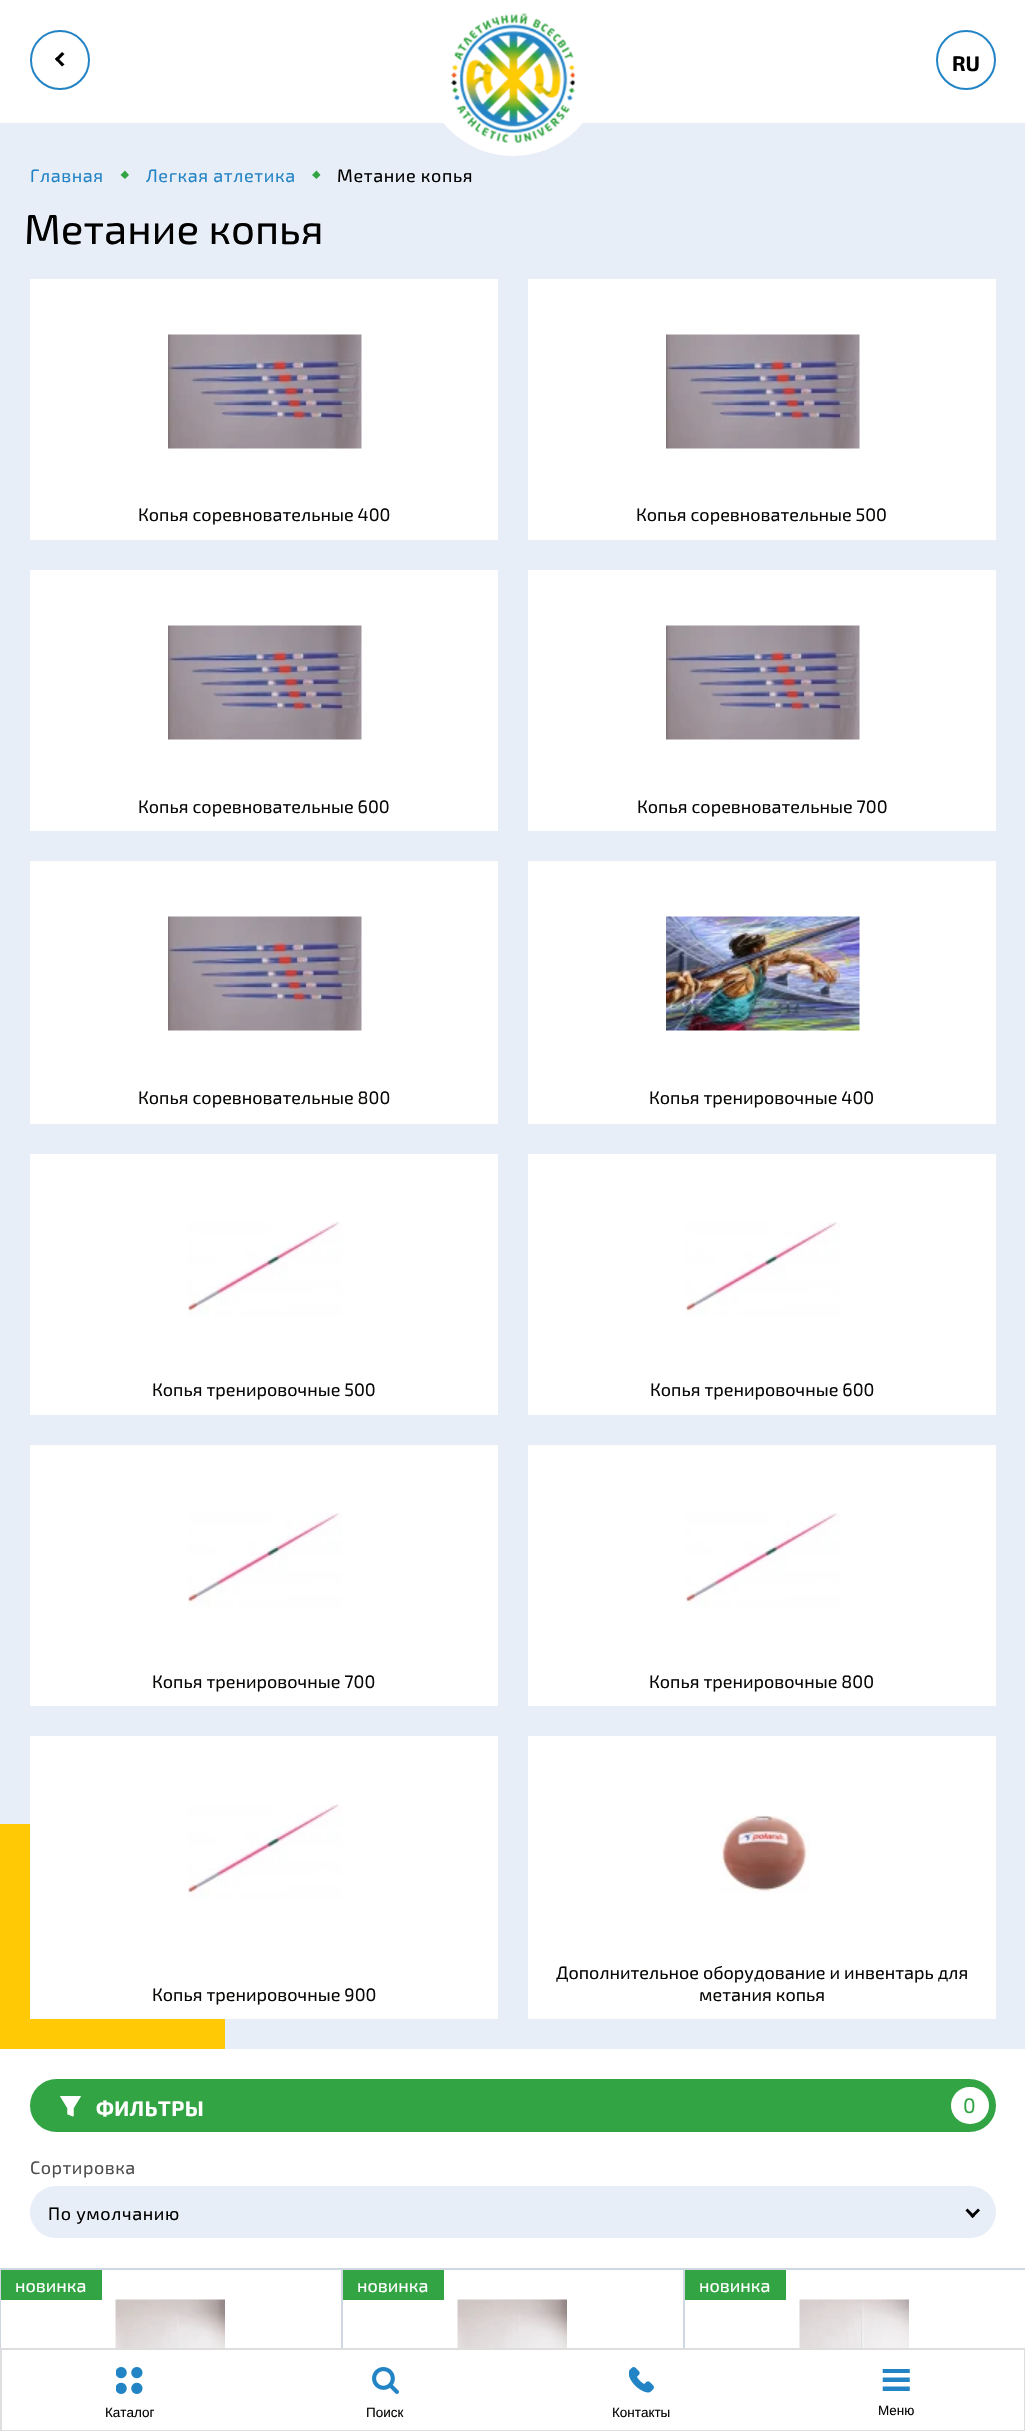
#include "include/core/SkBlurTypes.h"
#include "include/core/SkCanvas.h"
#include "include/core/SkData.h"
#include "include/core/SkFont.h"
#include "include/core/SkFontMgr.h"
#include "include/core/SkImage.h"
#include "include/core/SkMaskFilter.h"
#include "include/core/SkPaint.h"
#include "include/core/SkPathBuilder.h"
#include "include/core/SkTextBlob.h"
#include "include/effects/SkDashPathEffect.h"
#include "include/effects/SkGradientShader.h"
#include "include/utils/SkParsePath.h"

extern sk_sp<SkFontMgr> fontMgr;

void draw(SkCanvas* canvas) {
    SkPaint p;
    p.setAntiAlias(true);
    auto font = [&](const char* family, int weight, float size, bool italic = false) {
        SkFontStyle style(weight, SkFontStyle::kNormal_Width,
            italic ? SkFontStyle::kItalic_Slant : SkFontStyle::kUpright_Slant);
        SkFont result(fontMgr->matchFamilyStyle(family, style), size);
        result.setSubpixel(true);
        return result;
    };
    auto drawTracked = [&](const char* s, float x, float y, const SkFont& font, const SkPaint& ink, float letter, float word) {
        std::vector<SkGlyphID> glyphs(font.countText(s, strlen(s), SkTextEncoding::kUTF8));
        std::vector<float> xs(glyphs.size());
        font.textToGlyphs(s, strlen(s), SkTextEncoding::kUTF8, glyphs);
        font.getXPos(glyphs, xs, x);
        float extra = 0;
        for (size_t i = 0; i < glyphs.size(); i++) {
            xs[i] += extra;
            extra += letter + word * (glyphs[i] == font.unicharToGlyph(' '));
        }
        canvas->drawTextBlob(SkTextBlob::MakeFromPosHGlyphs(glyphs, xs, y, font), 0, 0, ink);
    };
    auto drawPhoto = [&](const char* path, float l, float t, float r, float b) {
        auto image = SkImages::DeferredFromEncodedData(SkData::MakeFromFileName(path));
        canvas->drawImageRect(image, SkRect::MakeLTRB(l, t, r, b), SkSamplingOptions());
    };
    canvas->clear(0xFFFFFFFF);
    p.setStyle(SkPaint::kStroke_Style);
    p.setStrokeWidth(2);
    p.setColor(0xFF2384C5);
    canvas->drawCircle(60, 60, 29, p);
    p.setStyle(SkPaint::kFill_Style);
    p.setColor(0xFF000000);
    canvas->drawPath(SkPathBuilder().moveTo(55, 59).lineTo(62, 52).lineTo(64.5f, 54).lineTo(57, 61.5f).close().detach(), p);
    canvas->drawPath(SkPathBuilder().moveTo(55, 59).lineTo(57, 57).lineTo(64.5f, 64.5f).lineTo(62, 66.5f).close().detach(), p);
    p.setColor(0xFFE8EEF7);
    canvas->drawRect(SkRect::MakeLTRB(0, 123, 1025, 2049), p);
    p.setColor(0xFFFFFFFF);
    canvas->drawCircle(513, 66, 90, p);
    drawPhoto("media/1.png", 451, 13, 575, 143);
    p.setStyle(SkPaint::kStroke_Style);
    p.setColor(0xFF2384C5);
    canvas->drawCircle(966, 60, 29, p);
    auto font1 = font("Exo 2", 700, 21);
    p.setStyle(SkPaint::kFill_Style);
    p.setColor(0xFF000000);
    canvas->drawString("RU", 952, 71, font1, p);
    auto font2 = font("Exo 2", 400, 18);
    p.setColor(0xFF2384C5);
    drawTracked("Главная", 30, 182, font2, p, 0.6f, 0);
    p.setColor(0xFF33A444);
    canvas->drawPath(SkPathBuilder().moveTo(125, 170.5f).lineTo(129, 175).lineTo(125, 179).lineTo(120.5f, 175).close().detach(), p);
    p.setColor(0xFF2384C5);
    drawTracked("Легкая атлетика", 146, 182, font2, p, 0.6f, 0);
    p.setColor(0xFF33A444);
    canvas->drawPath(SkPathBuilder().moveTo(316.5f, 170.5f).lineTo(320.5f, 175).lineTo(316.5f, 179).lineTo(312, 175).close().detach(), p);
    p.setColor(0xFF000000);
    drawTracked("Метание копья", 337, 182, font2, p, 0.6f, 0);
    auto font3 = font("Exo 2", 400, 42);
    canvas->drawString("Метание копья", 24, 244, font3, p);
    p.setColor(0xFFFFCA05);
    canvas->drawRect(SkRect::MakeLTRB(0, 1824, 225, 2049), p);
    p.setColor(0xFFFFFFFF);
    canvas->drawRect(SkRect::MakeLTRB(30, 279, 498, 540), p);
    drawPhoto("media/2.png", 168, 334, 362, 449);
    p.setColor(0xFF070906);
    canvas->drawString("Копья соревновательные 400", 138, 521, font2, p);
    p.setColor(0xFFFFFFFF);
    canvas->drawRect(SkRect::MakeLTRB(528, 279, 996, 540), p);
    drawPhoto("media/2.png", 666, 334, 860, 449);
    p.setColor(0xFF070906);
    canvas->drawString("Копья соревновательные 500", 636, 521, font2, p);
    p.setColor(0xFFFFFFFF);
    canvas->drawRect(SkRect::MakeLTRB(30, 570, 498, 831), p);
    drawPhoto("media/2.png", 168, 625, 362, 740);
    p.setColor(0xFF070906);
    canvas->drawString("Копья соревновательные 600", 138, 813, font2, p);
    p.setColor(0xFFFFFFFF);
    canvas->drawRect(SkRect::MakeLTRB(528, 570, 996, 831), p);
    drawPhoto("media/2.png", 666, 625, 860, 740);
    p.setColor(0xFF070906);
    canvas->drawString("Копья соревновательные 700", 637, 813, font2, p);
    p.setColor(0xFFFFFFFF);
    canvas->drawRect(SkRect::MakeLTRB(30, 861, 498, 1124), p);
    drawPhoto("media/2.png", 168, 916, 362, 1031);
    p.setColor(0xFF070906);
    canvas->drawString("Копья соревновательные 800", 138, 1104, font2, p);
    p.setColor(0xFFFFFFFF);
    canvas->drawRect(SkRect::MakeLTRB(528, 861, 996, 1124), p);
    drawPhoto("media/3.png", 666, 916, 860, 1031);
    p.setColor(0xFF070906);
    canvas->drawString("Копья тренировочные 400", 649, 1104, font2, p);
    p.setColor(0xFFFFFFFF);
    canvas->drawRect(SkRect::MakeLTRB(30, 1154, 498, 1415), p);
    drawPhoto("media/4.png", 187, 1222, 342, 1317);
    p.setColor(0xFF070906);
    canvas->drawString("Копья тренировочные 500", 152, 1396, font2, p);
    p.setColor(0xFFFFFFFF);
    canvas->drawRect(SkRect::MakeLTRB(528, 1154, 996, 1415), p);
    drawPhoto("media/4.png", 685, 1222, 840, 1317);
    p.setColor(0xFF070906);
    canvas->drawString("Копья тренировочные 600", 650, 1396, font2, p);
    p.setColor(0xFFFFFFFF);
    canvas->drawRect(SkRect::MakeLTRB(30, 1445, 498, 1706), p);
    drawPhoto("media/4.png", 187, 1513, 342, 1608);
    p.setColor(0xFF070906);
    canvas->drawString("Копья тренировочные 700", 152, 1688, font2, p);
    p.setColor(0xFFFFFFFF);
    canvas->drawRect(SkRect::MakeLTRB(528, 1445, 996, 1706), p);
    drawPhoto("media/4.png", 685, 1513, 840, 1608);
    p.setColor(0xFF070906);
    canvas->drawString("Копья тренировочные 800", 649, 1688, font2, p);
    p.setColor(0xFFFFFFFF);
    canvas->drawRect(SkRect::MakeLTRB(30, 1736, 498, 2019), p);
    drawPhoto("media/4.png", 187, 1804, 342, 1899);
    p.setColor(0xFF070906);
    canvas->drawString("Копья тренировочные 900", 152, 2001, font2, p);
    p.setColor(0xFFFFFFFF);
    canvas->drawRect(SkRect::MakeLTRB(528, 1736, 996, 2019), p);
    drawPhoto("media/5.png", 720, 1815, 810, 1893);
    p.setColor(0xFF070906);
    canvas->drawString("Дополнительное оборудование и инвентарь для", 556, 1979, font2, p);
    canvas->drawString("метания копья", 699, 2001, font2, p);
    p.setColor(0xFF33A444);
    canvas->drawRoundRect(SkRect::MakeLTRB(30, 2079, 996, 2132), 26.5f, 26.5f, p);
    drawPhoto("media/6.png", 60, 2096, 81, 2117);
    p.setColor(0xFFFFFFFF);
    drawTracked("ФИЛЬТРЫ", 96, 2116, font1, p, 0.5f, 0);
    canvas->drawRoundRect(SkRect::MakeLTRB(951, 2087, 989, 2124), 18.5f, 18.5f, p);
    auto font4 = font("Exo 2", 400, 21);
    p.setColor(0xFF33A444);
    canvas->drawString("0", 963, 2113, font4, p);
    p.setColor(0xFF4E4E4E);
    drawTracked("Сортировка", 30, 2174, font2, p, 0.5f, 0);
    p.setColor(0xFFE8EEF7);
    canvas->drawRoundRect(SkRect::MakeLTRB(30, 2186, 996, 2238), 26, 26, p);
    p.setColor(0xFF000000);
    drawTracked("По умолчанию", 48, 2220, font2, p, 0.6f, 0);
    canvas->drawPath(SkPathBuilder().moveTo(970.5f, 2216).lineTo(978, 2208.5f).lineTo(980, 2210.5f).lineTo(972.5f, 2218).close().detach(), p);
    canvas->drawPath(SkPathBuilder().moveTo(965.5f, 2210.5f).lineTo(967.5f, 2208.5f).lineTo(975, 2216).lineTo(972.5f, 2218).close().detach(), p);
    {
        const struct { float l, t, r, b; SkColor color; } items[] = {
            {0, 2268, 1025, 2270, 0xFFCFD7E2},
            {0, 2270, 1, 2348, 0xFFCFD7E2},
            {1, 2270, 102, 2300, 0xFF33A444},
        };
        for (auto [l, t, r, b, color] : items) {
            p.setColor(color);
            canvas->drawRect(SkRect::MakeLTRB(l, t, r, b), p);
        }
    }
    p.setColor(0xFFFFFFFF);
    canvas->drawString("новинка", 15, 2292, font2, p);
    drawPhoto("media/7.png", 115, 2299, 225, 2348);
    p.setColor(0xFFCFD7E2);
    canvas->drawRect(SkRect::MakeLTRB(341, 2270, 343, 2348), p);
    p.setColor(0xFF33A444);
    canvas->drawRect(SkRect::MakeLTRB(343, 2270, 444, 2300), p);
    p.setColor(0xFFFFFFFF);
    canvas->drawString("новинка", 357, 2292, font2, p);
    drawPhoto("media/7.png", 457, 2299, 567, 2348);
    p.setColor(0xFFCFD7E2);
    canvas->drawRect(SkRect::MakeLTRB(683, 2270, 685, 2348), p);
    p.setColor(0xFF33A444);
    canvas->drawRect(SkRect::MakeLTRB(685, 2270, 786, 2300), p);
    p.setColor(0xFFFFFFFF);
    canvas->drawString("новинка", 699, 2292, font2, p);
    drawPhoto("media/8.png", 799, 2299, 909, 2348);
    p.setStyle(SkPaint::kStroke_Style);
    p.setColor(0xFFDEDEDE);
    canvas->drawRect(SkRect::MakeLTRB(1, 2349, 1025, 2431), p);
    drawPhoto("media/9.png", 116, 2367, 143, 2394);
    auto font5 = font("Liberation Sans", 400, 13.5f);
    p.setStyle(SkPaint::kFill_Style);
    p.setColor(0xFF070906);
    canvas->drawString("Каталог", 105, 2417, font5, p);
    drawPhoto("media/10.png", 372, 2367, 399, 2394);
    canvas->drawString("Поиск", 366, 2417, font5, p);
    drawPhoto("media/11.png", 629, 2367, 654, 2393);
    canvas->drawString("Контакты", 612, 2417, font5, p);
    drawPhoto("media/12.png", 882, 2369, 910, 2391);
    canvas->drawString("Меню", 878, 2415, font5, p);
}
